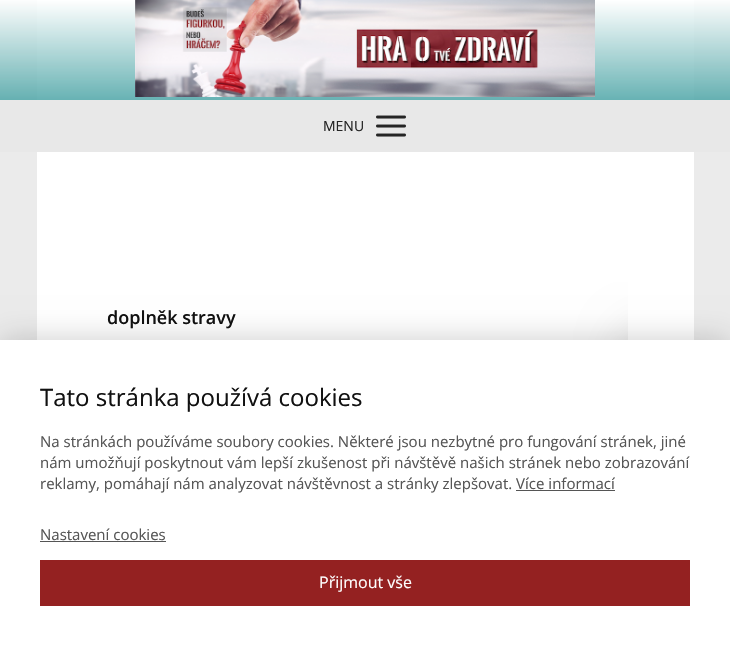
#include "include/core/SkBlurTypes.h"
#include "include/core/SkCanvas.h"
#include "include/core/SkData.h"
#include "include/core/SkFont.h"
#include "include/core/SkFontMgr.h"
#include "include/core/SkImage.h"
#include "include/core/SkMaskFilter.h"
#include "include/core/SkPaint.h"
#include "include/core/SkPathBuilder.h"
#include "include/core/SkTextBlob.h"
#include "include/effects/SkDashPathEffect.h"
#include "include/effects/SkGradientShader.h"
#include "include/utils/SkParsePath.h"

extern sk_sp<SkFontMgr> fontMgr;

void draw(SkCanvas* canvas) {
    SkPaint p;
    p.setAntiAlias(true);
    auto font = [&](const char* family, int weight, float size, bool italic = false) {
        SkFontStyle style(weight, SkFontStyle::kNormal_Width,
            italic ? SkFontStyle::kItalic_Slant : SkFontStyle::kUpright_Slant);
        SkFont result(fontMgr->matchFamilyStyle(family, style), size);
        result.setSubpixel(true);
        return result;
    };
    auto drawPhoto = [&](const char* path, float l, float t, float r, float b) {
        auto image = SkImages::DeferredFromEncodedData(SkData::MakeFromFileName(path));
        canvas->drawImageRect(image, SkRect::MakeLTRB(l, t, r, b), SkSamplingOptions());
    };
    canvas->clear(0xFFEBEBEB);
    p.setColor(0xFFFFFFFF);
    canvas->drawRect(SkRect::MakeLTRB(37, 0, 694, 340), p);
    {
        const SkColor colors[] = {0xE6FFFFFF, 0xE6007E80};
        const float stops[] = {0, 1};
        const SkPoint ends[] = {{365, 0}, {365, 152}};
        p.setShader(SkGradientShader::MakeLinear(ends, colors, stops, 2, SkTileMode::kClamp));
        p.setAlpha(255);
    }
    canvas->drawRect(SkRect::MakeLTRB(0, 0, 730, 100), p);
    drawPhoto("media/1.png", 135, 0, 595, 97);
    p.setShader(nullptr);
    p.setColor(0xFFE8E8E8);
    canvas->drawRect(SkRect::MakeLTRB(0, 100, 730, 152), p);
    auto font1 = font("Open Sans", 400, 14);
    p.setColor(0xFF242424);
    canvas->drawString("MENU", 323, 131, font1, p);
    drawPhoto("media/2.png", 376, 115, 406, 137);
    auto font2 = font("Open Sans", 600, 18);
    p.setColor(0xFF111111);
    canvas->drawString("doplněk stravy", 107, 324, font2, p);
    canvas->save();
    canvas->clipRect(SkRect::MakeLTRB(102, 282, 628, 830));
    p.setColor(0x33000000);
    p.setMaskFilter(SkMaskFilter::MakeBlur(kNormal_SkBlurStyle, 25));
    canvas->drawRoundRect(SkRect::MakeLTRB(628, 332, 678, 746), 25, 25, p);
    p.setMaskFilter(nullptr);
    canvas->restore();
    p.setMaskFilter(SkMaskFilter::MakeBlur(kNormal_SkBlurStyle, 15));
    canvas->drawRect(SkRect::MakeLTRB(0, 340, 730, 646), p);
    p.setMaskFilter(nullptr);
    p.setColor(0xFFFFFFFF);
    canvas->drawRect(SkRect::MakeLTRB(0, 340, 730, 646), p);
    auto font3 = font("Open Sans", 400, 24);
    p.setColor(0xFF111111);
    canvas->drawString("Tato stránka používá cookies", 40, 406, font3, p);
    auto font4 = font("Open Sans", 400, 15);
    p.setColor(0xFF555555);
    {
        const struct { const char* s; float x, y; } items[] = {
            {"Na stránkách používáme soubory cookies. Některé jsou nezbytné pro fungování stránek, jiné", 40, 447},
            {"nám umožňují poskytnout vám lepší zkušenost při návštěvě našich stránek nebo zobrazování", 40, 468},
            {"reklamy, pomáhají nám analyzovat návštěvnost a stránky zlepšovat. Více informací", 40, 489},
        };
        for (auto [s, x, y] : items) {
            canvas->drawString(s, x, y, font4, p);
        }
    }
    canvas->drawRect(SkRect::MakeLTRB(516, 490, 615, 491), p);
    canvas->drawString("Nastavení cookies", 40, 540, font4, p);
    canvas->drawRect(SkRect::MakeLTRB(40, 541, 166, 542), p);
    p.setColor(0xFF942121);
    canvas->drawRect(SkRect::MakeLTRB(40, 560, 690, 606), p);
    auto font5 = font("Open Sans", 400, 16);
    p.setColor(0xFFFFFFFF);
    canvas->drawString("Přijmout vše", 319, 588, font5, p);
}
